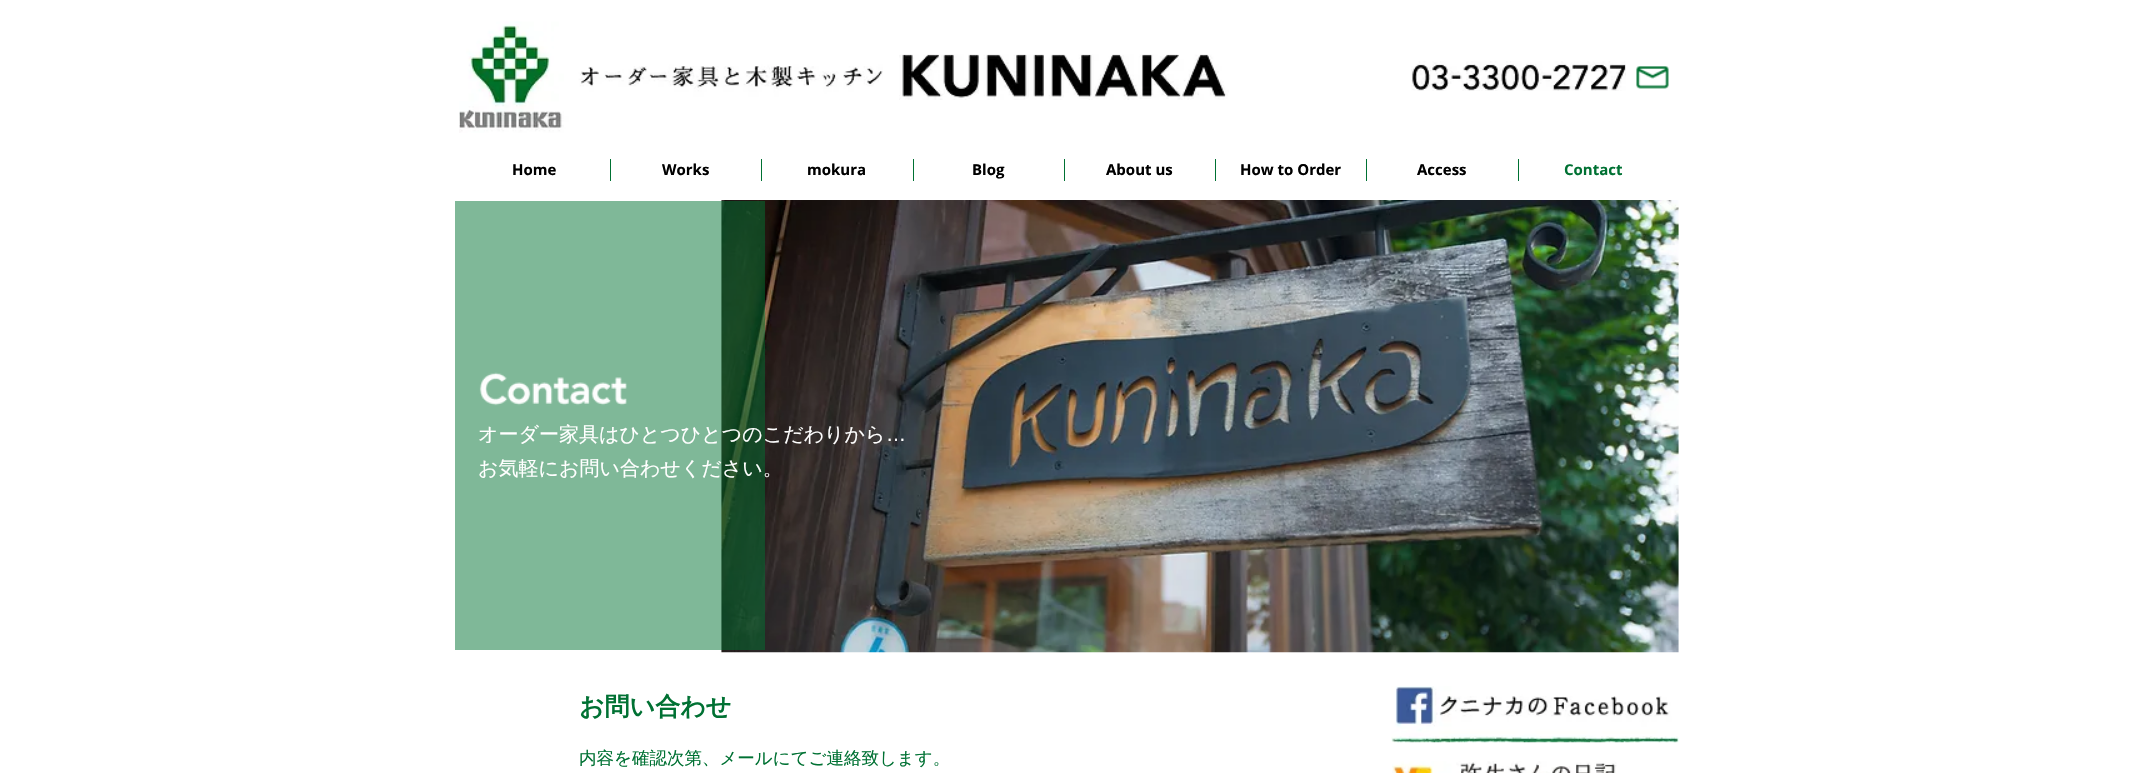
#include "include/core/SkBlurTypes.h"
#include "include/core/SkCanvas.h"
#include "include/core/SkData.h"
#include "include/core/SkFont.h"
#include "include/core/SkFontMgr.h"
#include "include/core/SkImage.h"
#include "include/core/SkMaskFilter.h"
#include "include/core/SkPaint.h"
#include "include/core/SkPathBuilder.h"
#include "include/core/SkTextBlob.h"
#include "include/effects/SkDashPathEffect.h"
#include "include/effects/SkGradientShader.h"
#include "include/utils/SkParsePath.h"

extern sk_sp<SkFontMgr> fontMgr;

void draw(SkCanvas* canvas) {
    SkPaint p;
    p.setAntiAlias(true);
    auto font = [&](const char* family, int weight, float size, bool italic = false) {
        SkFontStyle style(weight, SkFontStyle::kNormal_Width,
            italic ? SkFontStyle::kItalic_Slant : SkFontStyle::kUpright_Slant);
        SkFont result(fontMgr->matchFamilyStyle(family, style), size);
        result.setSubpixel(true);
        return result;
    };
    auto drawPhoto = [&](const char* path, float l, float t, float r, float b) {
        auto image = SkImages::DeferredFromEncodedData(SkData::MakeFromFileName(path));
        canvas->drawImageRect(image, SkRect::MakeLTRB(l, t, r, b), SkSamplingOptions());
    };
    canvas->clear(0xFFFFFFFF);
    drawPhoto("media/1.png", 459, 21, 883, 133);
    drawPhoto("media/2.png", 899, 54, 1229, 100);
    drawPhoto("media/3.png", 1411, 61, 1626, 91);
    drawPhoto("media/4.png", 1636, 66, 1669, 89);
    auto font1 = font("Open Sans", 700, 15);
    p.setColor(0xFF000000);
    canvas->drawString("Home", 512, 175, font1, p);
    p.setColor(0xFF007133);
    canvas->drawRect(SkRect::MakeLTRB(610, 159, 611, 181), p);
    p.setColor(0xFF000000);
    canvas->drawString("Works", 662, 175, font1, p);
    p.setColor(0xFF007133);
    canvas->drawRect(SkRect::MakeLTRB(761, 159, 762, 181), p);
    p.setColor(0xFF000000);
    canvas->drawString("mokura", 807, 175, font1, p);
    p.setColor(0xFF007133);
    canvas->drawRect(SkRect::MakeLTRB(913, 159, 914, 181), p);
    p.setColor(0xFF000000);
    canvas->drawString("Blog", 972, 175, font1, p);
    p.setColor(0xFF007133);
    canvas->drawRect(SkRect::MakeLTRB(1064, 159, 1065, 181), p);
    p.setColor(0xFF000000);
    canvas->drawString("About us", 1106, 175, font1, p);
    p.setColor(0xFF007133);
    canvas->drawRect(SkRect::MakeLTRB(1215, 159, 1216, 181), p);
    p.setColor(0xFF000000);
    canvas->drawString("How to Order", 1240, 175, font1, p);
    p.setColor(0xFF007133);
    canvas->drawRect(SkRect::MakeLTRB(1366, 159, 1367, 181), p);
    p.setColor(0xFF000000);
    canvas->drawString("Access", 1417, 175, font1, p);
    p.setColor(0xFF007133);
    canvas->drawRect(SkRect::MakeLTRB(1518, 159, 1519, 181), p);
    canvas->drawString("Contact", 1564, 175, font1, p);
    drawPhoto("media/6.png", 721, 200, 1679, 653);
    p.setColor(0x80007131);
    canvas->drawRect(SkRect::MakeLTRB(455, 201, 765, 650), p);
    drawPhoto("media/5.png", 479, 372, 627, 406);
    auto font2 = font("WenQuanYi Zen Hei", 500, 20);
    p.setColor(0xFFFFFFFF);
    canvas->drawString("オーダー家具はひとつひとつのこだわりから", 478, 441, font2, p);
    auto font3 = font("Liberation Sans", 400, 20);
    canvas->drawString("…", 886, 441, font3, p);
    canvas->drawString("お気軽にお問い合わせください。", 478, 475, font2, p);
    auto font4 = font("WenQuanYi Zen Hei", 700, 25);
    p.setColor(0xFF007133);
    canvas->drawString("お問い合わせ", 579, 715, font4, p);
    drawPhoto("media/7.png", 1391, 686, 1679, 743);
    auto font5 = font("WenQuanYi Zen Hei", 500, 17.5f);
    canvas->drawString("内容を確認次第、メールにてご連絡致します。", 579, 764, font5, p);
    drawPhoto("media/8.png", 1392, 761, 1617, 773);
}
